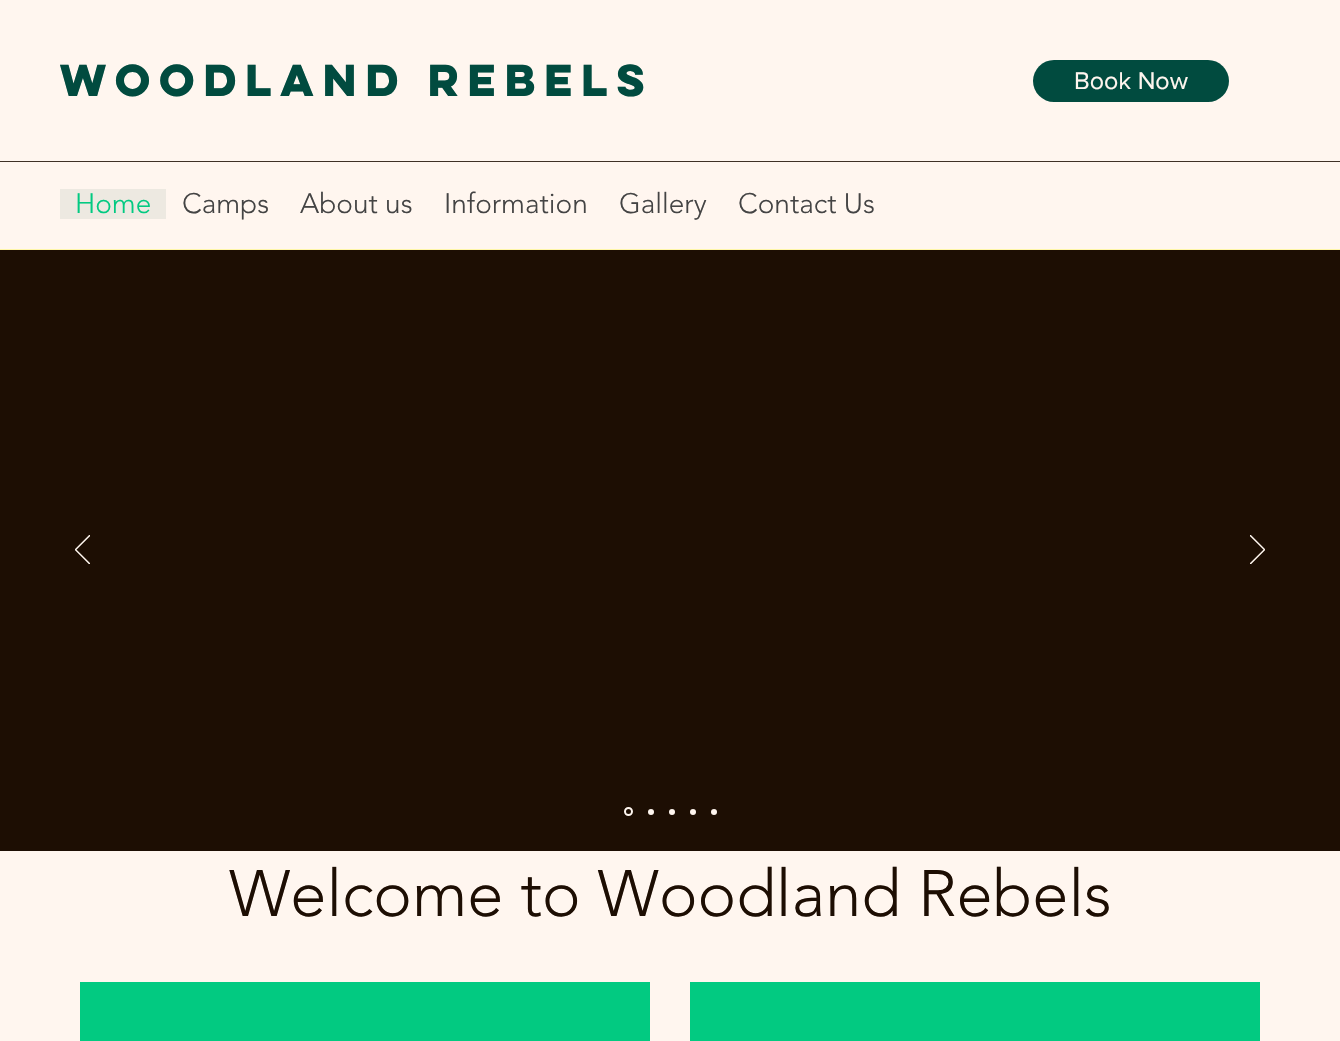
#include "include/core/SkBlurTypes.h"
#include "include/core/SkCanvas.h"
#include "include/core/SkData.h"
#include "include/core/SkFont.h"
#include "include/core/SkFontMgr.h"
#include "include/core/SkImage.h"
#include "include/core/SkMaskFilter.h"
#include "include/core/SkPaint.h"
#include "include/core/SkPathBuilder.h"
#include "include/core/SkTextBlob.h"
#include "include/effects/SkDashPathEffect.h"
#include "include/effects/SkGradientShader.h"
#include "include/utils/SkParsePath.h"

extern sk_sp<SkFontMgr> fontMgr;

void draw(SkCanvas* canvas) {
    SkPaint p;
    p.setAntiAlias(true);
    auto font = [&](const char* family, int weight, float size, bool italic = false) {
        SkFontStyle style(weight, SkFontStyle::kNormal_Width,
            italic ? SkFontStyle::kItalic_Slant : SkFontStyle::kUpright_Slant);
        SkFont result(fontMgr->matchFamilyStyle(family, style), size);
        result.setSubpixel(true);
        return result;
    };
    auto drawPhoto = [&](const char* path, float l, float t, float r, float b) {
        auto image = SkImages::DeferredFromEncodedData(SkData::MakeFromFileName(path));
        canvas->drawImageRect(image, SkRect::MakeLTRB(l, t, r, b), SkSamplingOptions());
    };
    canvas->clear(0xFFFFF6EF);
    auto font1 = font("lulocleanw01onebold", 700, 40);
    p.setColor(0xFF014B3F);
    canvas->drawString("Woodland Rebels", 60, 96, font1, p);
    canvas->drawRoundRect(SkRect::MakeLTRB(1033, 60, 1229, 102), 21, 21, p);
    auto font2 = font("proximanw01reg", 400, 25);
    p.setColor(0xFFFFF6EF);
    canvas->drawString("Book Now", 1074, 89, font2, p);
    p.setColor(0xFF3F3126);
    canvas->drawRect(SkRect::MakeLTRB(0, 161, 1340, 162), p);
    p.setColor(0xFFEDE9E1);
    canvas->drawRect(SkRect::MakeLTRB(60, 189, 166, 219), p);
    auto font3 = font("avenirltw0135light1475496", 300, 28);
    p.setColor(0xFF02CA81);
    canvas->drawString("Home", 75, 213, font3, p);
    p.setColor(0xFF444444);
    {
        const struct { const char* s; float x, y; } items[] = {
            {"Camps", 182, 213},
            {"About us", 300, 213},
            {"Information", 444, 213},
            {"Gallery", 619, 213},
            {"Contact Us", 738, 213},
        };
        for (auto [s, x, y] : items) {
            canvas->drawString(s, x, y, font3, p);
        }
    }
    p.setColor(0xFFFFF6A8);
    canvas->drawRect(SkRect::MakeLTRB(0, 249, 1340, 250), p);
    p.setColor(0xFF1D0E03);
    canvas->drawRect(SkRect::MakeLTRB(0, 250, 1340, 851), p);
    drawPhoto("media/1.png", 75, 535, 90, 564);
    drawPhoto("media/2.png", 1250, 535, 1265, 564);
    p.setStyle(SkPaint::kStroke_Style);
    p.setStrokeWidth(2);
    p.setColor(0xFFFFF6EF);
    canvas->drawCircle(628.5f, 811.5f, 3.5f, p);
    p.setStyle(SkPaint::kFill_Style);
    canvas->drawCircle(651, 812, 3, p);
    canvas->drawCircle(672, 812, 3, p);
    canvas->drawCircle(693, 812, 3, p);
    canvas->drawCircle(714, 812, 3, p);
    auto font4 = font("avenirltw0135light1475496", 300, 65);
    p.setColor(0xFF1D0E03);
    canvas->drawString("Welcome to Woodland Rebels", 229, 916, font4, p);
    p.setColor(0xFF02CA81);
    canvas->drawRect(SkRect::MakeLTRB(80, 982, 650, 1041), p);
    canvas->drawRect(SkRect::MakeLTRB(690, 982, 1260, 1041), p);
}
